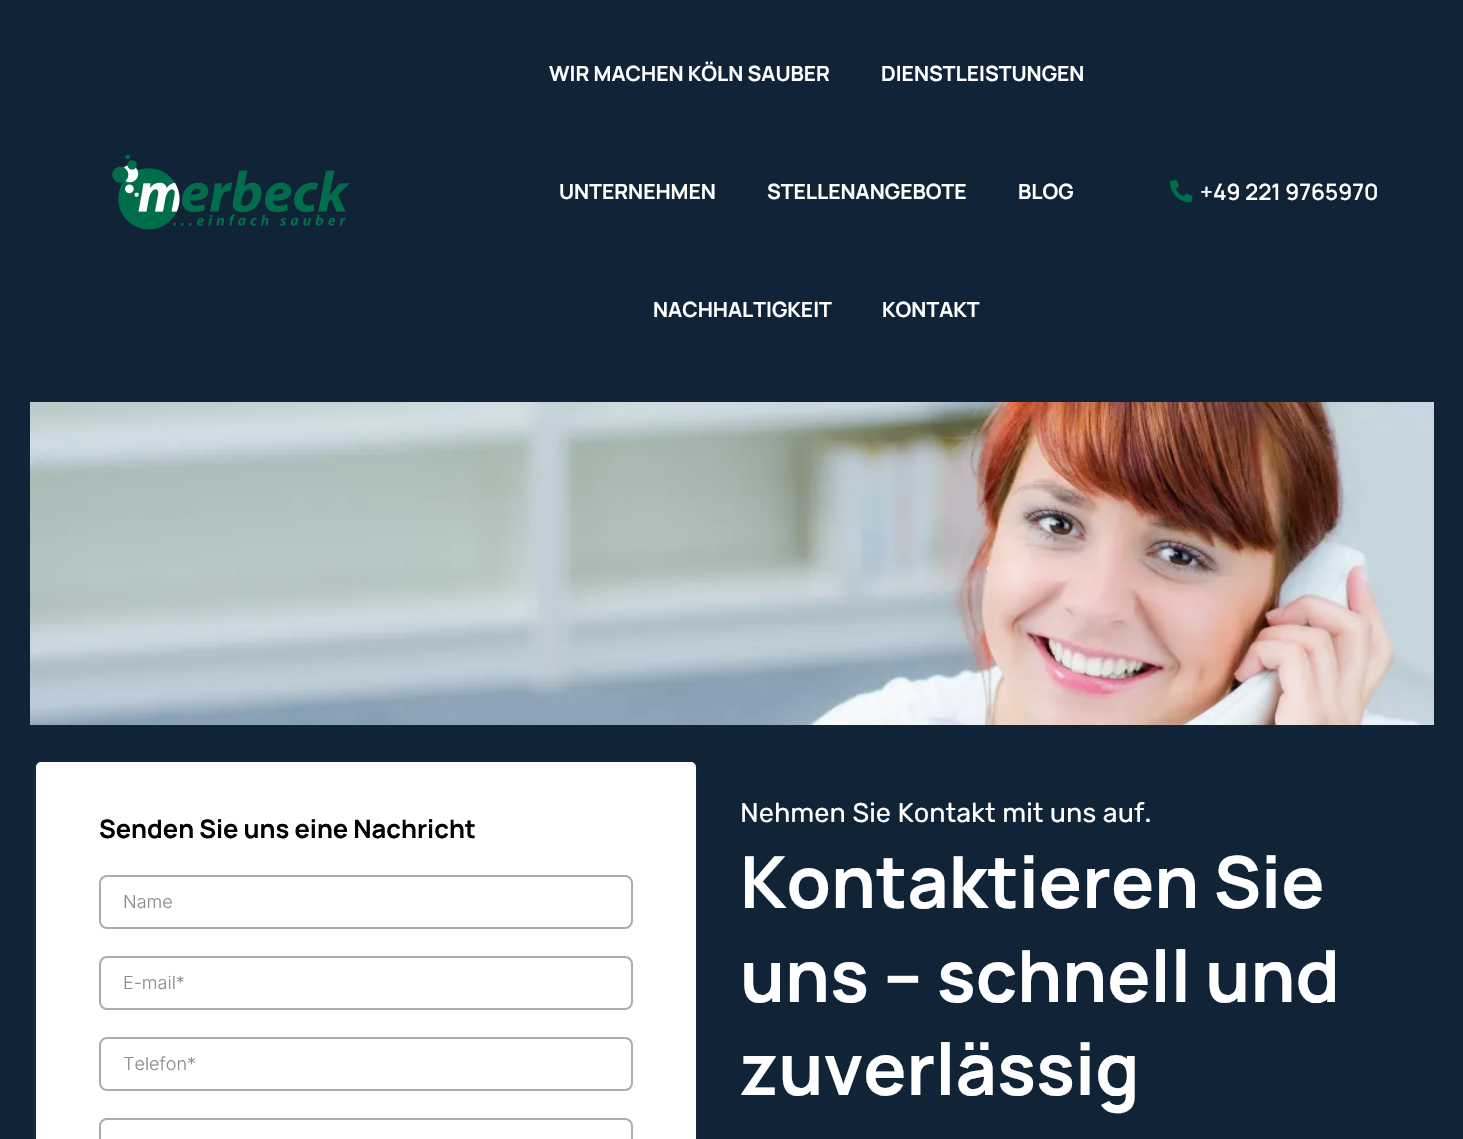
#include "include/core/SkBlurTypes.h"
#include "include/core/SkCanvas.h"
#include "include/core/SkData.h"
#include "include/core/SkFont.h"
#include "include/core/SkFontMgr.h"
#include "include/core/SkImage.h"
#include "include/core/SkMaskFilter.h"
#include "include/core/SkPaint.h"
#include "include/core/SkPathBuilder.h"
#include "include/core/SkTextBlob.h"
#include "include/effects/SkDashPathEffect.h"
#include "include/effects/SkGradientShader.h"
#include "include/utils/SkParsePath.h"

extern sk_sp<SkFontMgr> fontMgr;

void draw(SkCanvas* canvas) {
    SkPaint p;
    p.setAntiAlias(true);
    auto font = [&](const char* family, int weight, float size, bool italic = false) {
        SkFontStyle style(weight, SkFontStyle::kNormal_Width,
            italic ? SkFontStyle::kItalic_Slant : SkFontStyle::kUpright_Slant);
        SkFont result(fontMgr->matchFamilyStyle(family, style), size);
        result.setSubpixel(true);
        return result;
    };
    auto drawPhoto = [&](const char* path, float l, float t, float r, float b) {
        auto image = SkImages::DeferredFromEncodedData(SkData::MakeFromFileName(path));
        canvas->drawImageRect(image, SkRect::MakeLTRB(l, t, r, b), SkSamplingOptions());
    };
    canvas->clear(0xFF112337);
    drawPhoto("media/1.png", 112, 155, 350, 230);
    auto font1 = font("Manrope", 200, 21);
    p.setColor(0xFFFFFFFF);
    {
        const struct { const char* s; float x, y; } items[] = {
            {"WIR MACHEN KÖLN SAUBER", 549, 81},
            {"DIENSTLEISTUNGEN", 881, 81},
            {"UNTERNEHMEN", 559, 199},
            {"STELLENANGEBOTE", 767, 199},
            {"BLOG", 1018, 199},
            {"NACHHALTIGKEIT", 653, 317},
            {"KONTAKT", 882, 317},
        };
        for (auto [s, x, y] : items) {
            canvas->drawString(s, x, y, font1, p);
        }
    }
    drawPhoto("media/2.png", 1170, 179, 1193, 203);
    auto font2 = font("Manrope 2", 200, 22.5f);
    canvas->drawString("+49 221 9765970", 1200, 200, font2, p);
    drawPhoto("media/3.png", 30, 402, 1434, 725);
    p.setColor(0x3657647E);
    p.setMaskFilter(SkMaskFilter::MakeBlur(kNormal_SkBlurStyle, 3));
    canvas->drawRoundRect(SkRect::MakeLTRB(36, 768, 696, 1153), 5, 5, p);
    p.setMaskFilter(nullptr);
    p.setColor(0xFFFFFFFF);
    canvas->drawRoundRect(SkRect::MakeLTRB(37, 763, 695, 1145), 4, 4, p);
    p.setStyle(SkPaint::kStroke_Style);
    p.setStrokeWidth(2);
    canvas->drawRoundRect(SkRect::MakeLTRB(37, 763, 695, 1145), 4, 4, p);
    auto font3 = font("Manrope", 200, 25.5f);
    p.setStyle(SkPaint::kFill_Style);
    p.setColor(0xFF000000);
    canvas->drawString("Senden Sie uns eine Nachricht", 99, 838, font3, p);
    p.setStyle(SkPaint::kStroke_Style);
    p.setColor(0xFFACACAC);
    canvas->drawRoundRect(SkRect::MakeLTRB(100, 876, 632, 928), 7, 7, p);
    auto font4 = font("Inter", 300, 18);
    p.setStyle(SkPaint::kFill_Style);
    p.setColor(0xFF8C8C8C);
    canvas->drawString("Name", 123, 908, font4, p);
    p.setStyle(SkPaint::kStroke_Style);
    p.setColor(0xFFACACAC);
    canvas->drawRoundRect(SkRect::MakeLTRB(100, 957, 632, 1009), 7, 7, p);
    p.setStyle(SkPaint::kFill_Style);
    p.setColor(0xFF8C8C8C);
    canvas->drawString("E-mail*", 123, 989, font4, p);
    p.setStyle(SkPaint::kStroke_Style);
    p.setColor(0xFFACACAC);
    canvas->drawRoundRect(SkRect::MakeLTRB(100, 1038, 632, 1090), 7, 7, p);
    p.setStyle(SkPaint::kFill_Style);
    p.setColor(0xFF8C8C8C);
    canvas->drawString("Telefon*", 123, 1070, font4, p);
    p.setStyle(SkPaint::kStroke_Style);
    p.setColor(0xFFACACAC);
    canvas->drawRoundRect(SkRect::MakeLTRB(100, 1119, 632, 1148), 7, 7, p);
    auto font5 = font("Rubik", 300, 27);
    p.setStyle(SkPaint::kFill_Style);
    p.setColor(0xFFFFFFFF);
    canvas->drawString("Nehmen Sie Kontakt mit uns auf.", 740, 822, font5, p);
    auto font6 = font("Manrope", 200, 72);
    {
        const struct { const char* s; float x, y; } items[] = {
            {"Kontaktieren Sie", 740, 908},
            {"uns – schnell und", 740, 1002},
            {"zuverlässig", 740, 1095},
        };
        for (auto [s, x, y] : items) {
            canvas->drawString(s, x, y, font6, p);
        }
    }
}
